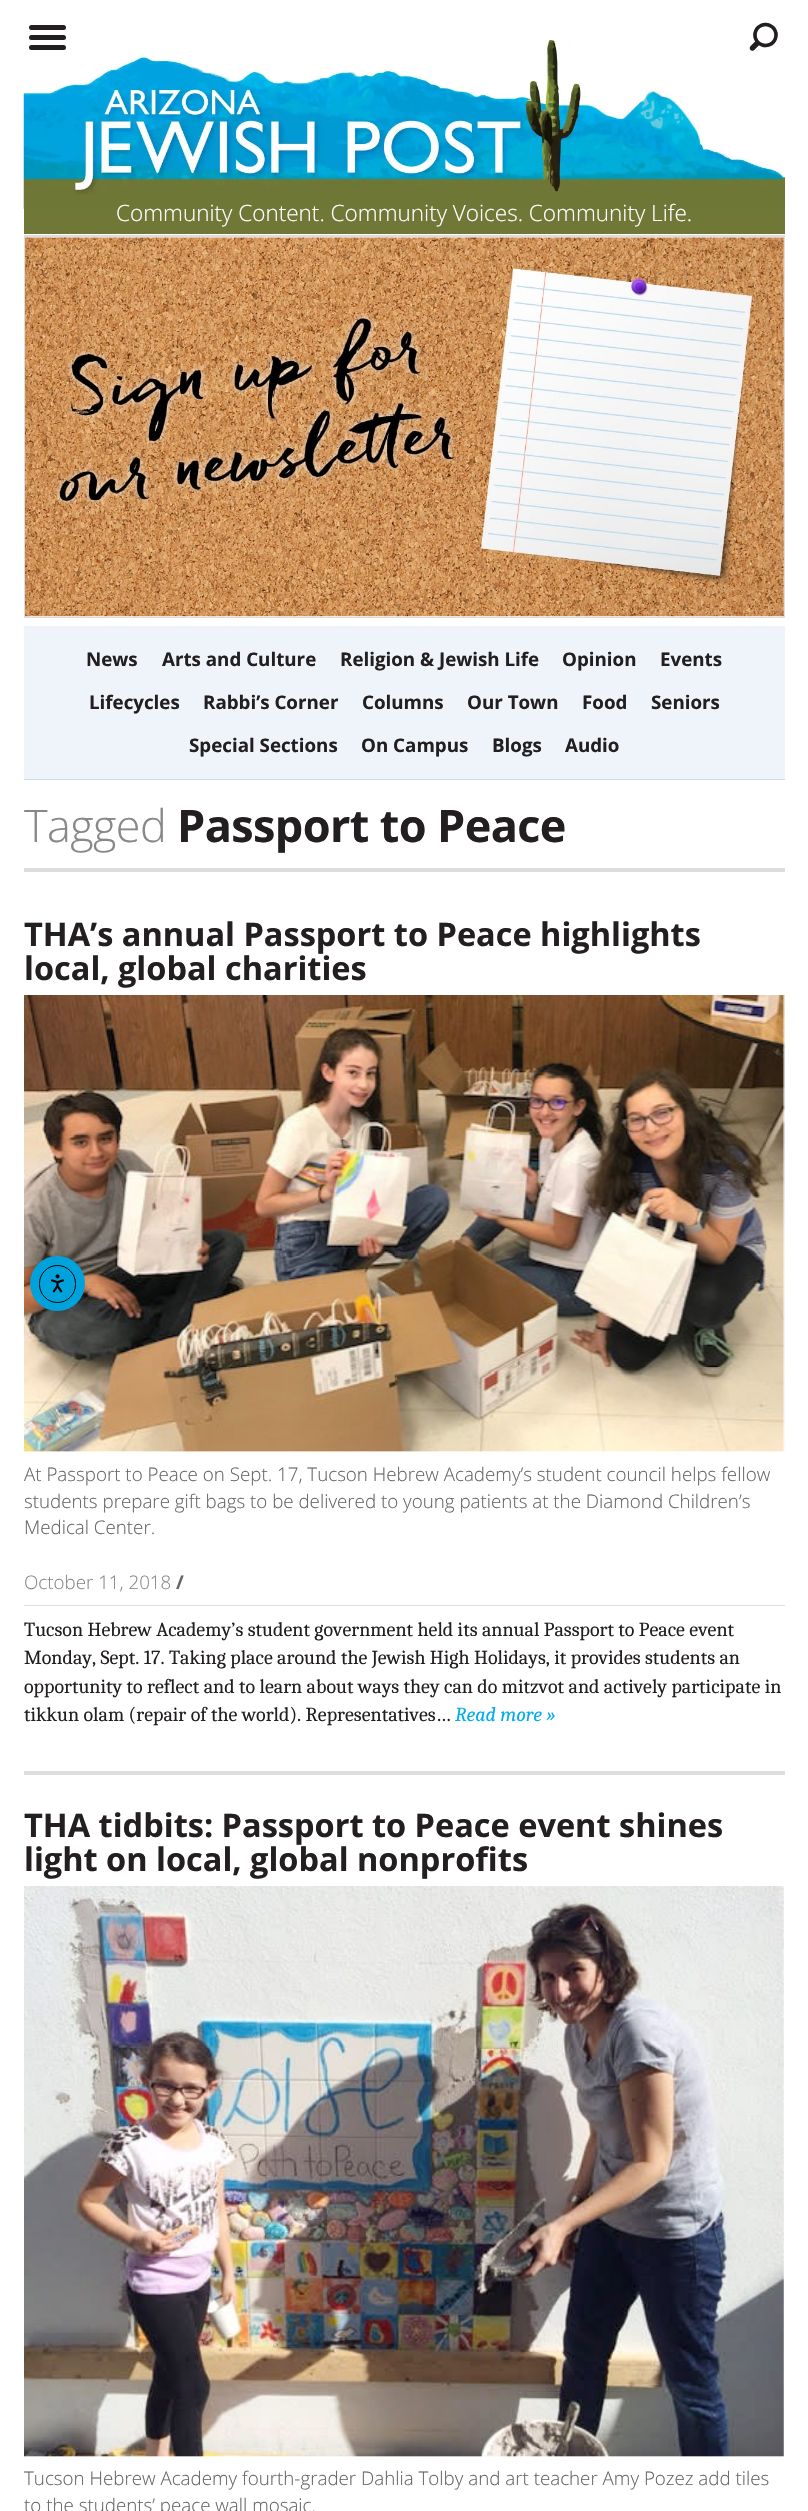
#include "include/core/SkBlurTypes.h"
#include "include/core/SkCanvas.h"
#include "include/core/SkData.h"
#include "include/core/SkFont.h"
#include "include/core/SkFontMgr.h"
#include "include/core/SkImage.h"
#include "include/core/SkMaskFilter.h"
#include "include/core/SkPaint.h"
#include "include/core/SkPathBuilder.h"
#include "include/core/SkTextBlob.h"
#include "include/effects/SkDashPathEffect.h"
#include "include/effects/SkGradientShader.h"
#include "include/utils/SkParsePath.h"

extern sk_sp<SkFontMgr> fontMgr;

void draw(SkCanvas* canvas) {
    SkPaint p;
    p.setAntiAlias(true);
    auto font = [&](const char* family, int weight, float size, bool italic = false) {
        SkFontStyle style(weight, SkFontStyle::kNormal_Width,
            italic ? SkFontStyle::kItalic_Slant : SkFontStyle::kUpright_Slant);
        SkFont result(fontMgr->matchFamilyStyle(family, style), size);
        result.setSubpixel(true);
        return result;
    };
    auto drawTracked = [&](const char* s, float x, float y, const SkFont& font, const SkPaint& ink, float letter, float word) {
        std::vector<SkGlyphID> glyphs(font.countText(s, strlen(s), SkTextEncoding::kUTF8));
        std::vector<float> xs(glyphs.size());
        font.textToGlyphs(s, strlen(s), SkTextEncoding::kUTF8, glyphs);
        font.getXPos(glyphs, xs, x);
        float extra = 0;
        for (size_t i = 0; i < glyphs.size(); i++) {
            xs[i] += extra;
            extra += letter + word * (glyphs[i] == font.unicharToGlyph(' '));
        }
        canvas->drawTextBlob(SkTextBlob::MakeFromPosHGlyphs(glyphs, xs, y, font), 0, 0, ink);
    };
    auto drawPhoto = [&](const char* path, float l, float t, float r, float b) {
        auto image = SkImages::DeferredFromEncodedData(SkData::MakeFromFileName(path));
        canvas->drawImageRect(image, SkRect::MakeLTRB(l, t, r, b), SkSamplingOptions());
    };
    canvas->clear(0xFFFFFFFF);
    p.setColor(0xFF231F20);
    canvas->drawRoundRect(SkRect::MakeLTRB(29, 25, 66, 30), 2.5f, 2.5f, p);
    canvas->drawRoundRect(SkRect::MakeLTRB(29, 35, 66, 40), 2.5f, 2.5f, p);
    p.setColor(0xFF707837);
    canvas->drawRect(SkRect::MakeLTRB(24, 208, 785, 234), p);
    drawPhoto("media/1.png", 23, 40, 785, 209);
    p.setColor(0xFF231F20);
    canvas->drawRoundRect(SkRect::MakeLTRB(29, 45, 66, 50), 2.5f, 2.5f, p);
    p.setColor(0xFFDDDDDD);
    canvas->drawRect(SkRect::MakeLTRB(24, 235, 785, 236), p);
    auto font1 = font("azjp", 400, 28);
    p.setColor(0xFF231F20);
    canvas->drawString("+", 749, 49, font1, p);
    auto font2 = font("Open Sans", 300, 22.5f);
    p.setColor(0xFFFFFFFF);
    canvas->drawString("Community Content. Community Voices. Community Life.", 116, 221, font2, p);
    p.setStyle(SkPaint::kStroke_Style);
    p.setStrokeWidth(1);
    p.setColor(0xFFDDDDDD);
    canvas->drawRect(SkRect::MakeLTRB(24.5f, 236.5f, 784.5f, 617.5f), p);
    drawPhoto("media/2.png", 25, 237, 784, 617);
    p.setStyle(SkPaint::kFill_Style);
    p.setColor(0xFFEEF4F9);
    canvas->drawRect(SkRect::MakeLTRB(24, 626, 785, 779), p);
    p.setColor(0xFFC8DCEC);
    canvas->drawRect(SkRect::MakeLTRB(24, 779, 785, 780), p);
    auto font3 = font("Open Sans", 700, 18.75f);
    p.setColor(0xFF231F20);
    {
        const struct { const char* s; float x, y; } items[] = {
            {"News", 86, 666},
            {"Arts and Culture", 162, 666},
            {"Religion & Jewish Life", 340, 666},
            {"Opinion", 562, 666},
            {"Events", 660, 666},
            {"Lifecycles", 89, 709},
            {"Rabbi’s Corner", 203, 709},
            {"Columns", 362, 709},
            {"Our Town", 467, 709},
            {"Food", 582, 709},
            {"Seniors", 651, 709},
            {"Special Sections", 189, 752},
            {"On Campus", 361, 752},
            {"Blogs", 492, 752},
            {"Audio", 565, 752},
        };
        for (auto [s, x, y] : items) {
            canvas->drawString(s, x, y, font3, p);
        }
    }
    p.setColor(0xFFDDDDDD);
    canvas->drawRect(SkRect::MakeLTRB(24, 868, 785, 872), p);
    auto font4 = font("Open Sans", 300, 45);
    p.setColor(0xFF888888);
    drawTracked("Tagged", 24, 842, font4, p, -0.6f, 0);
    auto font5 = font("Open Sans", 700, 45);
    p.setColor(0xFF231F20);
    drawTracked("Passport to Peace", 177, 842, font5, p, -0.6f, 0);
    p.setColor(0xFFDDDDDD);
    canvas->drawRect(SkRect::MakeLTRB(24, 1771, 785, 1775), p);
    auto font6 = font("Open Sans", 700, 32.5f);
    p.setColor(0xFF231F20);
    canvas->drawString("THA’s annual Passport to Peace highlights", 24, 946, font6, p);
    canvas->drawString("local, global charities", 24, 980, font6, p);
    drawPhoto("media/3.png", 24, 995, 785, 1452);
    auto font7 = font("Open Sans", 300, 18.75f);
    p.setColor(0xFF666666);
    {
        const struct { const char* s; float x, y; } items[] = {
            {"At Passport to Peace on Sept. 17, Tucson Hebrew Academy’s student council helps fellow", 24, 1481},
            {"students prepare gift bags to be delivered to young patients at the Diamond Children’s", 24, 1508},
            {"Medical Center.", 24, 1534},
        };
        for (auto [s, x, y] : items) {
            canvas->drawString(s, x, y, font7, p);
        }
    }
    p.setColor(0xFFDDDDDD);
    canvas->drawRect(SkRect::MakeLTRB(24, 1605, 785, 1606), p);
    p.setColor(0xFF888888);
    canvas->drawString("October 11, 2018", 24, 1589, font7, p);
    p.setColor(0xFF666666);
    canvas->drawString("/", 176, 1589, font3, p);
    auto font8 = font("Caladea", 400, 20);
    p.setColor(0xFF231F20);
    {
        const struct { const char* s; float x, y; } items[] = {
            {"Tucson Hebrew Academy’s student government held its annual Passport to Peace event", 24, 1636},
            {"Monday, Sept. 17. Taking place around the Jewish High Holidays, it provides students an", 24, 1664},
            {"opportunity to reflect and to learn about ways they can do mitzvot and actively participate in", 24, 1693},
            {"tikkun olam (repair of the world). Representatives…", 24, 1721},
        };
        for (auto [s, x, y] : items) {
            canvas->drawString(s, x, y, font8, p);
        }
    }
    auto font9 = font("Caladea", 400, 20, true);
    p.setColor(0xFF00ADEE);
    canvas->drawString("Read more »", 455, 1721, font9, p);
    p.setColor(0xFF231F20);
    canvas->drawString("THA tidbits: Passport to Peace event shines", 24, 1837, font6, p);
    canvas->drawString("light on local, global nonprofits", 24, 1871, font6, p);
    drawPhoto("media/4.png", 24, 1886, 784, 2457);
    p.setColor(0xFF666666);
    canvas->drawString("Tucson Hebrew Academy fourth-grader Dahlia Tolby and art teacher Amy Pozez add tiles", 24, 2485, font7, p);
    canvas->drawString("to the students’ peace wall mosaic.", 24, 2512, font7, p);
    p.setColor(0xFF00A2DC);
    canvas->drawCircle(57.5f, 1283.5f, 27.5f, p);
    p.setStyle(SkPaint::kStroke_Style);
    p.setColor(0xFF000000);
    canvas->drawRoundRect(SkRect::MakeLTRB(39.5f, 1265.5f, 75.5f, 1302.5f), 18, 18, p);
    drawPhoto("media/5.png", 50, 1274, 64, 1293);
}
